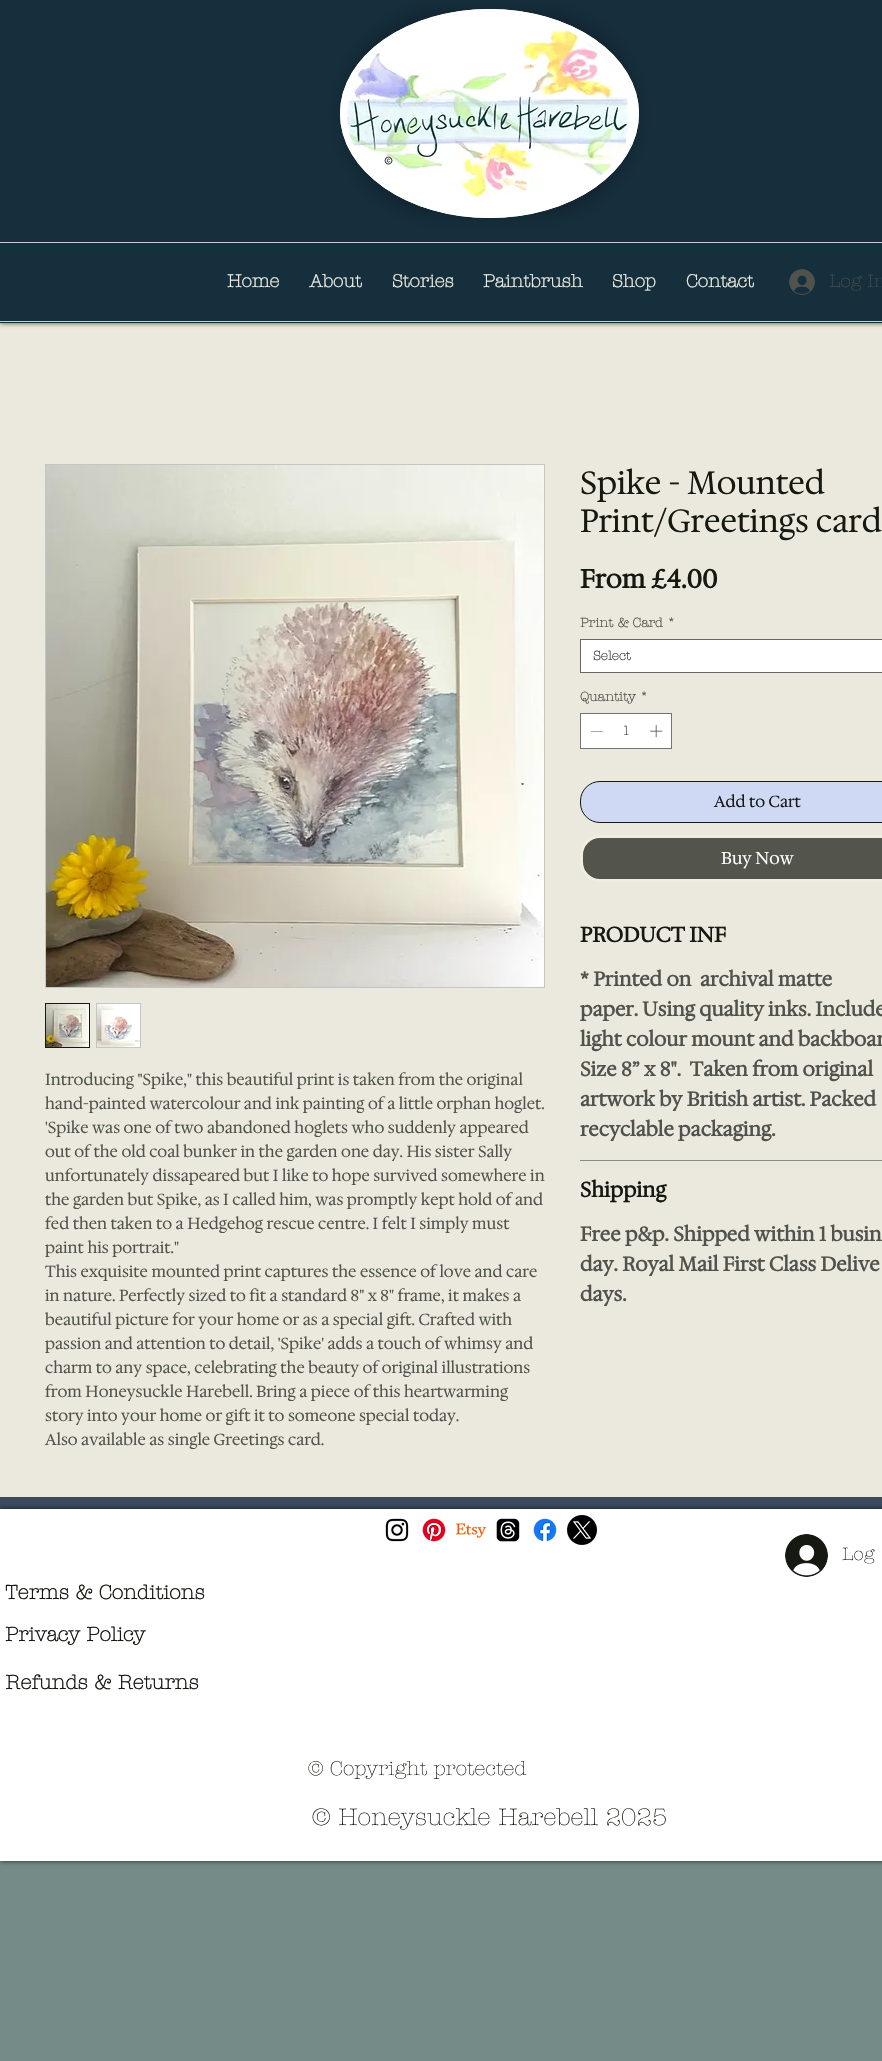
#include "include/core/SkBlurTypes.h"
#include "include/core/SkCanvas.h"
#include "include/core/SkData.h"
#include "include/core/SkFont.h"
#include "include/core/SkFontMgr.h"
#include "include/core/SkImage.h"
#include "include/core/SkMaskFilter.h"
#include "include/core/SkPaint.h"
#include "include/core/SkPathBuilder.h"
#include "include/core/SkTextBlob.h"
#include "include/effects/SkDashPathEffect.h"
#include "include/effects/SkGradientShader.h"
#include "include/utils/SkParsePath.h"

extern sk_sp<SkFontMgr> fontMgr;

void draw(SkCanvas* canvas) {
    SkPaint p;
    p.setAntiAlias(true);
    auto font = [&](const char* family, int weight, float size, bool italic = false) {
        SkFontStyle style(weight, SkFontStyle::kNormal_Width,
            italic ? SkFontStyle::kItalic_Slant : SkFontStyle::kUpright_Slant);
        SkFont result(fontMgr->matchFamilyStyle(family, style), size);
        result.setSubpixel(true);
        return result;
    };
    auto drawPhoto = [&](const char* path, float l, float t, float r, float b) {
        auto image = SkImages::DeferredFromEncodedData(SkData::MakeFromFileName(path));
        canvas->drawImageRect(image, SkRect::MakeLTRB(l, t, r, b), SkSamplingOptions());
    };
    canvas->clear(0xFF748B88);
    p.setColor(0xFFEBE8DD);
    canvas->drawRect(SkRect::MakeLTRB(0, 323, 882, 1497), p);
    p.setColor(0xB3000000);
    p.setMaskFilter(SkMaskFilter::MakeBlur(kNormal_SkBlurStyle, 2.5f));
    canvas->drawRect(SkRect::MakeLTRB(0, 0, 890, 323), p);
    p.setMaskFilter(nullptr);
    p.setColor(0xFF162F3D);
    canvas->drawRect(SkRect::MakeLTRB(0, 0, 882, 323), p);
    p.setColor(0x33000000);
    p.setMaskFilter(SkMaskFilter::MakeBlur(kNormal_SkBlurStyle, 7));
    canvas->drawRoundRect(SkRect::MakeLTRB(340, 9, 639, 218), 104.5f, 104.5f, p);
    p.setMaskFilter(nullptr);
    p.setColor(0xFFFFFFFF);
    canvas->drawOval(SkRect::MakeLTRB(340, 9, 639, 218), p);
    p.setStyle(SkPaint::kStroke_Style);
    p.setStrokeWidth(6);
    canvas->drawPath(SkPathBuilder().moveTo(489.5f, 12).cubicTo(570.5f, 12, 636, 57.5f, 636, 113.5f).cubicTo(636, 169.5f, 570.5f, 215, 489.5f, 215).cubicTo(408.5f, 215, 343, 169.5f, 343, 113.5f).cubicTo(343, 57.5f, 408.5f, 12, 489.5f, 12).close().detach(), p);
    drawPhoto("media/1.png", 347, 30, 630, 198);
    p.setStyle(SkPaint::kFill_Style);
    p.setColor(0xFFCACACA);
    canvas->drawRect(SkRect::MakeLTRB(0, 242, 882, 243), p);
    canvas->drawRect(SkRect::MakeLTRB(0, 321, 882, 322), p);
    auto font1 = font("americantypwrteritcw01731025", 700, 18);
    p.setColor(0xFFF0EDE1);
    {
        const struct { const char* s; float x, y; } items[] = {
            {"Home", 227, 287},
            {"About", 309, 287},
            {"Stories", 392, 287},
            {"Paintbrush", 483, 287},
            {"Shop", 612, 287},
            {"Contact", 686, 287},
        };
        for (auto [s, x, y] : items) {
            canvas->drawString(s, x, y, font1, p);
        }
    }
    drawPhoto("media/2.png", 789, 269, 815, 295);
    auto font2 = font("americantypwrteritcw01731025", 300, 18);
    p.setColor(0xFF50534D);
    canvas->drawString("Log In", 829, 287, font2, p);
    p.setStyle(SkPaint::kStroke_Style);
    p.setStrokeWidth(1);
    p.setColor(0xFFC5C6C4);
    canvas->drawRect(SkRect::MakeLTRB(45.5f, 464.5f, 544.5f, 987.5f), p);
    drawPhoto("media/3.png", 46, 465, 544, 987);
    p.setColor(0xFF151911);
    canvas->drawRect(SkRect::MakeLTRB(45.5f, 1003.5f, 89.5f, 1047.5f), p);
    drawPhoto("media/4.png", 46, 1004, 89, 1047);
    p.setStyle(SkPaint::kFill_Style);
    p.setColor(0xFFC5C6C4);
    canvas->drawRect(SkRect::MakeLTRB(96, 1003, 141, 1048), p);
    drawPhoto("media/5.png", 97, 1004, 140, 1047);
    auto font3 = font("Hedvig Letters Serif", 400, 16);
    p.setColor(0xFF50534D);
    {
        const struct { const char* s; float x, y; } items[] = {
            {"Introducing \"Spike,\" this beautiful print is taken from the original", 45, 1085},
            {"hand-painted watercolour and ink painting of a little orphan hoglet.", 45, 1109},
            {"'Spike was one of two abandoned hoglets who suddenly appeared", 45, 1133},
            {"out of the old coal bunker in the garden one day. His sister Sally", 45, 1157},
            {"unfortunately dissapeared but I like to hope survived somewhere in", 45, 1181},
            {"the garden but Spike, as I called him, was promptly kept hold of and", 45, 1205},
            {"fed then taken to a Hedgehog rescue centre. I felt I simply must", 45, 1229},
            {"paint his portrait.\"", 45, 1253},
            {"This exquisite mounted print captures the essence of love and care", 45, 1277},
            {"in nature. Perfectly sized to fit a standard 8\" x 8\" frame, it makes a", 45, 1301},
            {"beautiful picture for your home or as a special gift. Crafted with", 45, 1325},
            {"passion and attention to detail, 'Spike' adds a touch of whimsy and", 45, 1349},
            {"charm to any space, celebrating the beauty of original illustrations", 45, 1373},
            {"from Honeysuckle Harebell. Bring a piece of this heartwarming", 45, 1397},
            {"story into your home or gift it to someone special today.", 45, 1421},
            {"Also available as single Greetings card.", 45, 1445},
        };
        for (auto [s, x, y] : items) {
            canvas->drawString(s, x, y, font3, p);
        }
    }
    auto font4 = font("Hedvig Letters Serif", 400, 32);
    p.setColor(0xFF151911);
    canvas->drawString("Spike - Mounted", 580, 494, font4, p);
    canvas->drawString("Print/Greetings card", 580, 532, font4, p);
    auto font5 = font("Hedvig Letters Serif", 700, 26);
    canvas->drawString("From £4.00", 580, 588, font5, p);
    auto font6 = font("americantypwrteritcw01731025", 700, 13);
    p.setColor(0xFF50534D);
    canvas->drawString("Print & Card *", 580, 627, font6, p);
    p.setColor(0xFFFFFFFF);
    canvas->drawRect(SkRect::MakeLTRB(580.5f, 639.5f, 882.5f, 672.5f), p);
    p.setStyle(SkPaint::kStroke_Style);
    p.setColor(0xFF666666);
    canvas->drawRect(SkRect::MakeLTRB(580.5f, 639.5f, 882.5f, 672.5f), p);
    p.setStyle(SkPaint::kFill_Style);
    p.setColor(0xFF444444);
    canvas->drawString("Select", 593, 660, font6, p);
    p.setColor(0xFF50534D);
    canvas->drawString("Quantity *", 580, 701, font6, p);
    p.setColor(0xFFFFFFFF);
    canvas->drawRect(SkRect::MakeLTRB(580.5f, 713.5f, 671.5f, 748.5f), p);
    p.setStyle(SkPaint::kStroke_Style);
    p.setColor(0xFF737570);
    canvas->drawRect(SkRect::MakeLTRB(580.5f, 713.5f, 671.5f, 748.5f), p);
    p.setStyle(SkPaint::kFill_Style);
    p.setColor(0xFF50534D);
    canvas->drawPath(SkPathBuilder(SkPathFillType::kEvenOdd).moveTo(603, 731).lineTo(603, 731.5f).lineTo(591, 731.5f).lineTo(591, 731).close().detach(), p);
    canvas->drawString("1", 622, 735, font6, p);
    drawPhoto("media/6.png", 650, 725, 663, 738);
    p.setColor(0xFFCFD9F4);
    canvas->drawRoundRect(SkRect::MakeLTRB(580.5f, 781.5f, 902.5f, 822.5f), 19.5f, 19.5f, p);
    p.setStyle(SkPaint::kStroke_Style);
    p.setColor(0xFF151911);
    canvas->drawRoundRect(SkRect::MakeLTRB(580.5f, 781.5f, 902.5f, 822.5f), 19.5f, 19.5f, p);
    p.setStyle(SkPaint::kFill_Style);
    canvas->drawString("Add to Cart", 714, 807, font3, p);
    p.setColor(0xFF53554C);
    canvas->drawRoundRect(SkRect::MakeLTRB(581.5f, 836.5f, 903.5f, 880.5f), 18.5f, 18.5f, p);
    p.setStyle(SkPaint::kStroke_Style);
    p.setStrokeWidth(3);
    p.setColor(0xFFF0EDE1);
    canvas->drawRoundRect(SkRect::MakeLTRB(581.5f, 836.5f, 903.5f, 880.5f), 18.5f, 18.5f, p);
    auto font7 = font("Hedvig Letters Serif", 400, 17);
    p.setStyle(SkPaint::kFill_Style);
    p.setColor(0xFFFFFFFF);
    canvas->drawString("Buy Now", 721, 864, font7, p);
    p.setColor(0xFF8A8C88);
    canvas->drawRect(SkRect::MakeLTRB(580, 1160, 882, 1161), p);
    auto font8 = font("Hedvig Letters Serif", 700, 21);
    p.setColor(0xFF151911);
    canvas->drawString("PRODUCT INF", 580, 942, font8, p);
    auto font9 = font("Hedvig Letters Serif", 700, 20);
    p.setColor(0xFF50534D);
    {
        const struct { const char* s; float x, y; } items[] = {
            {"* Printed on  archival matte", 580, 986},
            {"paper. Using quality inks. Include", 580, 1016},
            {"light colour mount and backboar", 580, 1046},
            {"Size 8” x 8\".  Taken from original", 580, 1076},
            {"artwork by British artist. Packed", 580, 1106},
            {"recyclable packaging.", 580, 1136},
        };
        for (auto [s, x, y] : items) {
            canvas->drawString(s, x, y, font9, p);
        }
    }
    p.setColor(0xFF151911);
    canvas->drawString("Shipping", 580, 1197, font8, p);
    p.setColor(0xFF50534D);
    {
        const struct { const char* s; float x, y; } items[] = {
            {"Free p&p. Shipped within 1 busin", 580, 1241},
            {"day. Royal Mail First Class Delive", 580, 1271},
            {"days.", 580, 1301},
        };
        for (auto [s, x, y] : items) {
            canvas->drawString(s, x, y, font9, p);
        }
    }
    p.setColor(0xFF3A4B5E);
    canvas->drawRect(SkRect::MakeLTRB(0, 1497, 882, 1509), p);
    p.setColor(0xB3000000);
    p.setMaskFilter(SkMaskFilter::MakeBlur(kNormal_SkBlurStyle, 2.5f));
    canvas->drawRect(SkRect::MakeLTRB(0, 1509, 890, 1861), p);
    p.setMaskFilter(nullptr);
    p.setColor(0xFFFFFFFF);
    canvas->drawRect(SkRect::MakeLTRB(0, 1509, 882, 1861), p);
    drawPhoto("media/7.png", 385, 1518, 409, 1542);
    drawPhoto("media/8.png", 422, 1518, 446, 1542);
    drawPhoto("media/9.png", 456, 1523, 486, 1538);
    drawPhoto("media/10.png", 496, 1518, 520, 1542);
    drawPhoto("media/11.png", 533, 1518, 557, 1542);
    drawPhoto("media/12.png", 567, 1515, 597, 1545);
    drawPhoto("media/13.png", 785, 1534, 828, 1577);
    p.setColor(0xFF151911);
    canvas->drawString("Log", 842, 1560, font2, p);
    auto font10 = font("americantypwrteritcw01731025", 700, 20);
    {
        const struct { const char* s; float x, y; } items[] = {
            {"Terms & Conditions", 5, 1599},
            {"Privacy Policy", 5, 1641},
            {"Refunds & Returns", 5, 1689},
        };
        for (auto [s, x, y] : items) {
            canvas->drawString(s, x, y, font10, p);
        }
    }
    auto font11 = font("americantypwrteritcw01731025", 300, 20);
    canvas->drawString("© Copyright protected", 308, 1775, font11, p);
    auto font12 = font("americantypwrteritcw01731025", 300, 24);
    canvas->drawString("© Honeysuckle Harebell 2025", 312, 1825, font12, p);
}
